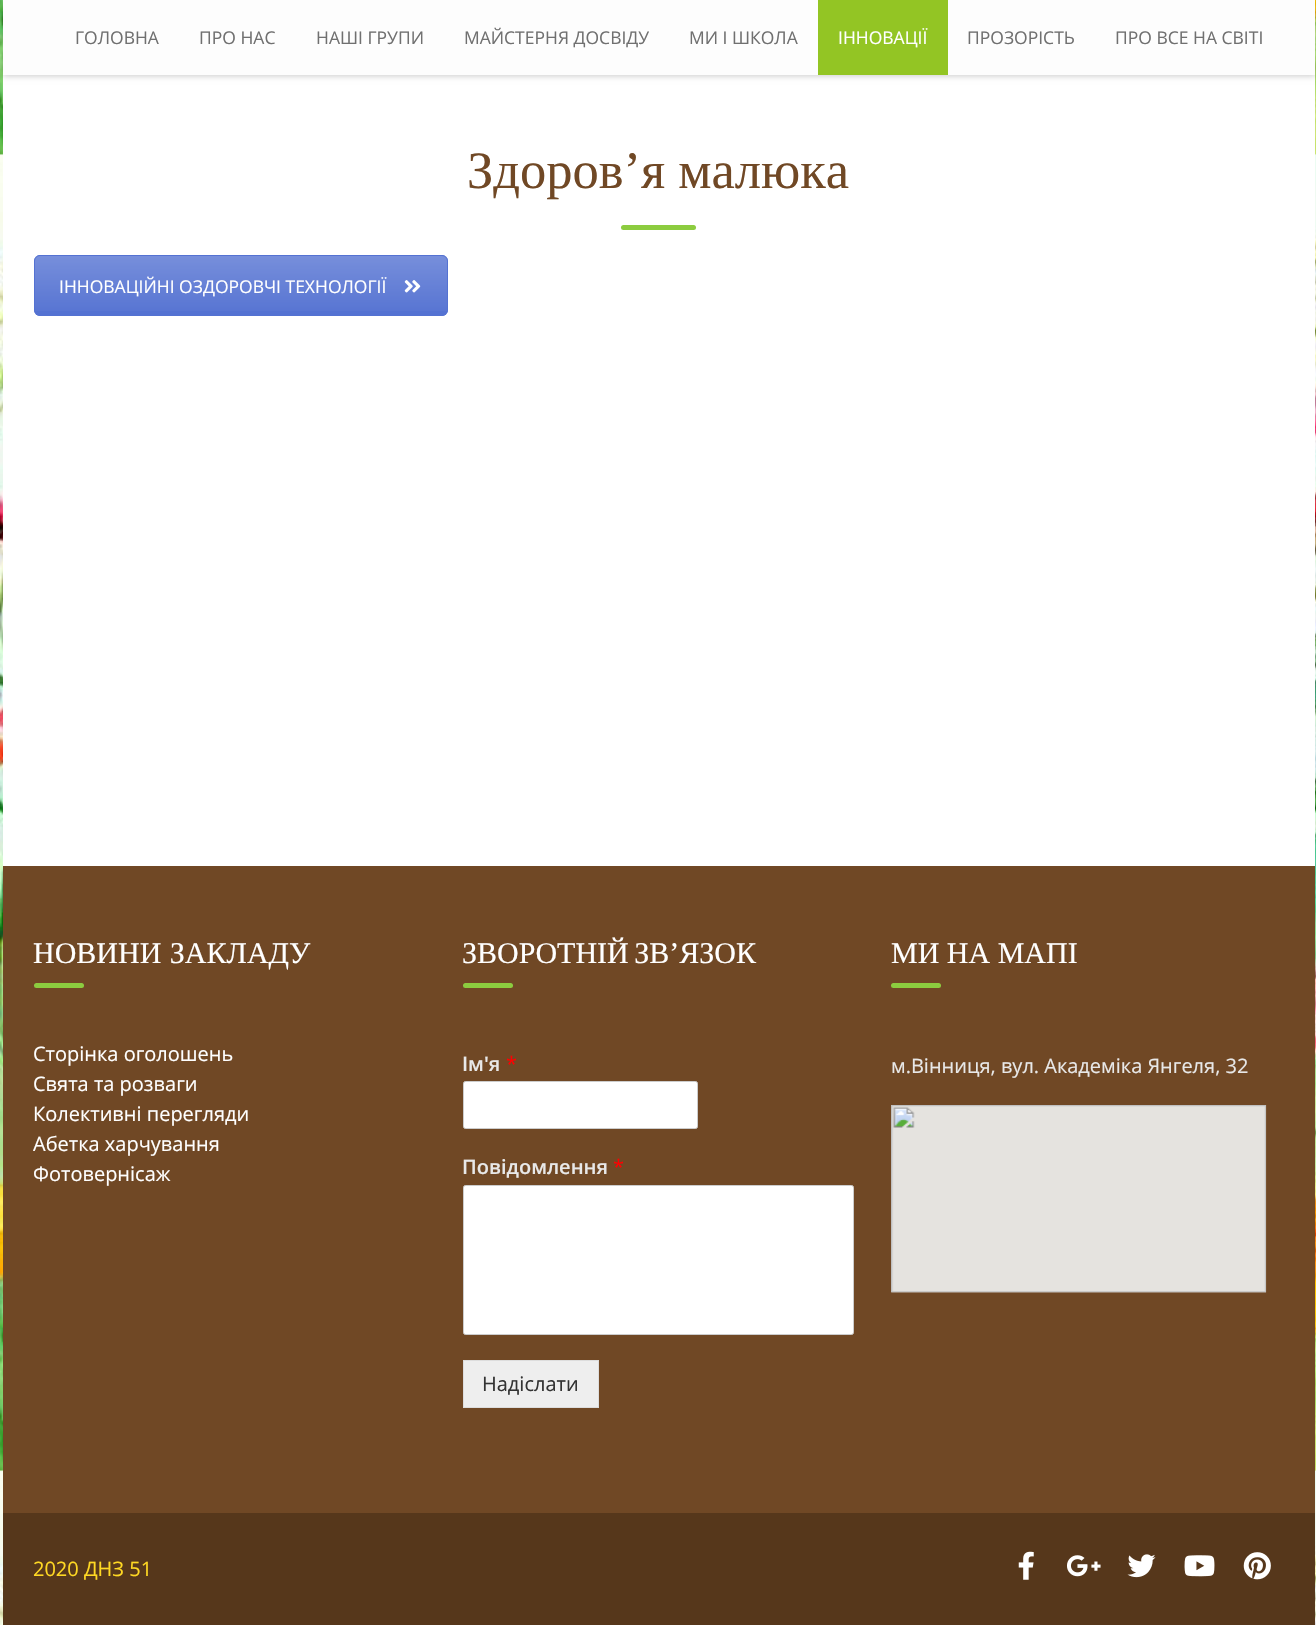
#include "include/core/SkBlurTypes.h"
#include "include/core/SkCanvas.h"
#include "include/core/SkData.h"
#include "include/core/SkFont.h"
#include "include/core/SkFontMgr.h"
#include "include/core/SkImage.h"
#include "include/core/SkMaskFilter.h"
#include "include/core/SkPaint.h"
#include "include/core/SkPathBuilder.h"
#include "include/core/SkTextBlob.h"
#include "include/effects/SkDashPathEffect.h"
#include "include/effects/SkGradientShader.h"
#include "include/utils/SkParsePath.h"

extern sk_sp<SkFontMgr> fontMgr;

void draw(SkCanvas* canvas) {
    SkPaint p;
    p.setAntiAlias(true);
    auto font = [&](const char* family, int weight, float size, bool italic = false) {
        SkFontStyle style(weight, SkFontStyle::kNormal_Width,
            italic ? SkFontStyle::kItalic_Slant : SkFontStyle::kUpright_Slant);
        SkFont result(fontMgr->matchFamilyStyle(family, style), size);
        result.setSubpixel(true);
        return result;
    };
    auto drawTracked = [&](const char* s, float x, float y, const SkFont& font, const SkPaint& ink, float letter, float word) {
        std::vector<SkGlyphID> glyphs(font.countText(s, strlen(s), SkTextEncoding::kUTF8));
        std::vector<float> xs(glyphs.size());
        font.textToGlyphs(s, strlen(s), SkTextEncoding::kUTF8, glyphs);
        font.getXPos(glyphs, xs, x);
        float extra = 0;
        for (size_t i = 0; i < glyphs.size(); i++) {
            xs[i] += extra;
            extra += letter + word * (glyphs[i] == font.unicharToGlyph(' '));
        }
        canvas->drawTextBlob(SkTextBlob::MakeFromPosHGlyphs(glyphs, xs, y, font), 0, 0, ink);
    };
    auto drawPhoto = [&](const char* path, float l, float t, float r, float b) {
        auto image = SkImages::DeferredFromEncodedData(SkData::MakeFromFileName(path));
        canvas->drawImageRect(image, SkRect::MakeLTRB(l, t, r, b), SkSamplingOptions());
    };
    canvas->clear(0xFFFFFFFF);
    drawPhoto("media/1.png", 0, 0, 1316, 1625);
    p.setColor(0xFFFFFFFF);
    canvas->drawRect(SkRect::MakeLTRB(3, 75, 1315, 866), p);
    p.setColor(0x33000000);
    p.setMaskFilter(SkMaskFilter::MakeBlur(kNormal_SkBlurStyle, 3));
    canvas->drawRect(SkRect::MakeLTRB(3, 1, 1315, 76), p);
    p.setMaskFilter(nullptr);
    p.setColor(0xFFFDFDFD);
    canvas->drawRect(SkRect::MakeLTRB(3, 0, 1315, 75), p);
    auto font1 = font("Open Sans", 400, 17.5f);
    p.setColor(0xFF707070);
    {
        const struct { const char* s; float x, y; } items[] = {
            {"ГОЛОВНА", 75, 44},
            {"ПРО НАС", 199, 44},
            {"НАШІ ГРУПИ", 316, 44},
            {"МАЙСТЕРНЯ ДОСВІДУ", 464, 44},
            {"МИ І ШКОЛА", 689, 44},
        };
        for (auto [s, x, y] : items) {
            canvas->drawString(s, x, y, font1, p);
        }
    }
    p.setColor(0xFF93C524);
    canvas->drawRect(SkRect::MakeLTRB(818, 0, 948, 75), p);
    p.setColor(0xFFFFFFFF);
    canvas->drawString("ІННОВАЦІЇ", 838, 44, font1, p);
    p.setColor(0xFF707070);
    canvas->drawString("ПРОЗОРІСТЬ", 967, 44, font1, p);
    canvas->drawString("ПРО ВСЕ НА СВІТІ", 1115, 44, font1, p);
    auto font2 = font("Liberation Serif", 400, 52.5f);
    p.setColor(0xFF704825);
    canvas->drawString("Здоров’я малюка", 467, 188, font2, p);
    p.setColor(0xFF8CCC3F);
    canvas->drawRoundRect(SkRect::MakeLTRB(621, 225, 696, 230), 2.5f, 2.5f, p);
    p.setColor(0xFF5472D2);
    canvas->drawRoundRect(SkRect::MakeLTRB(34, 255, 448, 316), 6, 6, p);
    canvas->save();
    canvas->clipPath(SkPathBuilder().moveTo(40, 255).lineTo(442, 255).cubicTo(445.5f, 255, 448, 257.5f, 448, 261).lineTo(448, 310).cubicTo(448, 313.5f, 445.5f, 316, 442, 316).lineTo(40, 316).cubicTo(36.5f, 316, 34, 313.5f, 34, 310).lineTo(34, 261).cubicTo(34, 257.5f, 36.5f, 255, 40, 255).close().detach(), true);
    {
        const SkColor colors[] = {0x33FFFFFF, 0x03FFFFFF};
        const float stops[] = {0, 1};
        const SkPoint ends[] = {{241, 256}, {241, 315}};
        p.setShader(SkGradientShader::MakeLinear(ends, colors, stops, 2, SkTileMode::kClamp));
        p.setAlpha(255);
    }
    canvas->drawRect(SkRect::MakeLTRB(34, 256, 448, 311), p);
    canvas->restore();
    p.setStyle(SkPaint::kStroke_Style);
    p.setStrokeWidth(1);
    p.setShader(nullptr);
    p.setColor(0xFF5472D2);
    canvas->drawRoundRect(SkRect::MakeLTRB(34.5f, 255.5f, 447.5f, 315.5f), 5.5f, 5.5f, p);
    p.setStyle(SkPaint::kFill_Style);
    p.setColor(0xFFFFFFFF);
    canvas->drawString("ІННОВАЦІЙНІ ОЗДОРОВЧІ ТЕХНОЛОГІЇ", 59, 293, font1, p);
    drawPhoto("media/2.png", 404, 280, 421, 293);
    p.setColor(0xFF704825);
    canvas->drawRect(SkRect::MakeLTRB(3, 866, 1315, 1513), p);
    auto font3 = font("Liberation Serif", 400, 30);
    p.setColor(0xFFFFFFFF);
    drawTracked("НОВИНИ ЗАКЛАДУ", 33, 963, font3, p, 0, 1);
    p.setColor(0xFF8CCC3F);
    canvas->drawRoundRect(SkRect::MakeLTRB(34, 983, 84, 988), 2.5f, 2.5f, p);
    auto font4 = font("Open Sans", 400, 20);
    p.setColor(0xFFFFFFFF);
    {
        const struct { const char* s; float x, y; } items[] = {
            {"Сторінка оголошень", 33, 1061},
            {"Свята та розваги", 33, 1091},
            {"Колективні перегляди", 33, 1121},
            {"Абетка харчування", 33, 1151},
            {"Фотовернісаж", 33, 1181},
        };
        for (auto [s, x, y] : items) {
            canvas->drawString(s, x, y, font4, p);
        }
    }
    drawTracked("ЗВОРОТНIЙ ЗВ’ЯЗОК", 462, 963, font3, p, 0, -2);
    p.setColor(0xFF8CCC3F);
    canvas->drawRoundRect(SkRect::MakeLTRB(463, 983, 513, 988), 2.5f, 2.5f, p);
    auto font5 = font("Open Sans", 600, 20);
    p.setColor(0xFFE8E8E8);
    canvas->drawString("Ім'я", 462, 1071, font5, p);
    p.setColor(0xFFFF0000);
    canvas->drawString("*", 506, 1071, font4, p);
    p.setColor(0xFFFFFFFF);
    canvas->drawRoundRect(SkRect::MakeLTRB(463.5f, 1081.5f, 697.5f, 1128.5f), 2, 2, p);
    p.setStyle(SkPaint::kStroke_Style);
    p.setColor(0xFFCCCCCC);
    canvas->drawRoundRect(SkRect::MakeLTRB(463.5f, 1081.5f, 697.5f, 1128.5f), 2, 2, p);
    p.setStyle(SkPaint::kFill_Style);
    p.setColor(0xFFE8E8E8);
    canvas->drawString("Повідомлення", 462, 1174, font5, p);
    p.setColor(0xFFFF0000);
    canvas->drawString("*", 613, 1174, font4, p);
    p.setColor(0xFFFFFFFF);
    canvas->drawRoundRect(SkRect::MakeLTRB(463.5f, 1185.5f, 853.5f, 1334.5f), 2, 2, p);
    p.setStyle(SkPaint::kStroke_Style);
    p.setColor(0xFFCCCCCC);
    canvas->drawRoundRect(SkRect::MakeLTRB(463.5f, 1185.5f, 853.5f, 1334.5f), 2, 2, p);
    p.setStyle(SkPaint::kFill_Style);
    p.setColor(0xFFEEEEEE);
    canvas->drawRect(SkRect::MakeLTRB(463.5f, 1360.5f, 598.5f, 1407.5f), p);
    p.setStyle(SkPaint::kStroke_Style);
    p.setColor(0xFFDDDDDD);
    canvas->drawRect(SkRect::MakeLTRB(463.5f, 1360.5f, 598.5f, 1407.5f), p);
    p.setStyle(SkPaint::kFill_Style);
    p.setColor(0xFF333333);
    canvas->drawString("Надіслати", 482, 1391, font4, p);
    p.setColor(0xFFFFFFFF);
    canvas->drawString("МИ НА МАПI", 891, 963, font3, p);
    p.setColor(0xFF8CCC3F);
    canvas->drawRoundRect(SkRect::MakeLTRB(891, 983, 941, 988), 2.5f, 2.5f, p);
    p.setColor(0xFFE8E8E8);
    canvas->drawString("м.Вінниця, вул. Академіка Янгеля, 32", 891, 1073, font4, p);
    drawPhoto("media/3.png", 891, 1105, 1267, 1293);
    p.setColor(0xFF56371B);
    canvas->drawRect(SkRect::MakeLTRB(3, 1513, 1315, 1625), p);
    p.setColor(0xFFFFD823);
    canvas->drawString("2020 ДНЗ 51", 33, 1576, font4, p);
    drawPhoto("media/4.png", 1018, 1551, 1034, 1580);
    drawPhoto("media/5.png", 1067, 1555, 1101, 1577);
    drawPhoto("media/6.png", 1127, 1554, 1156, 1578);
    drawPhoto("media/7.png", 1184, 1555, 1215, 1577);
    drawPhoto("media/8.png", 1243, 1552, 1271, 1580);
}
